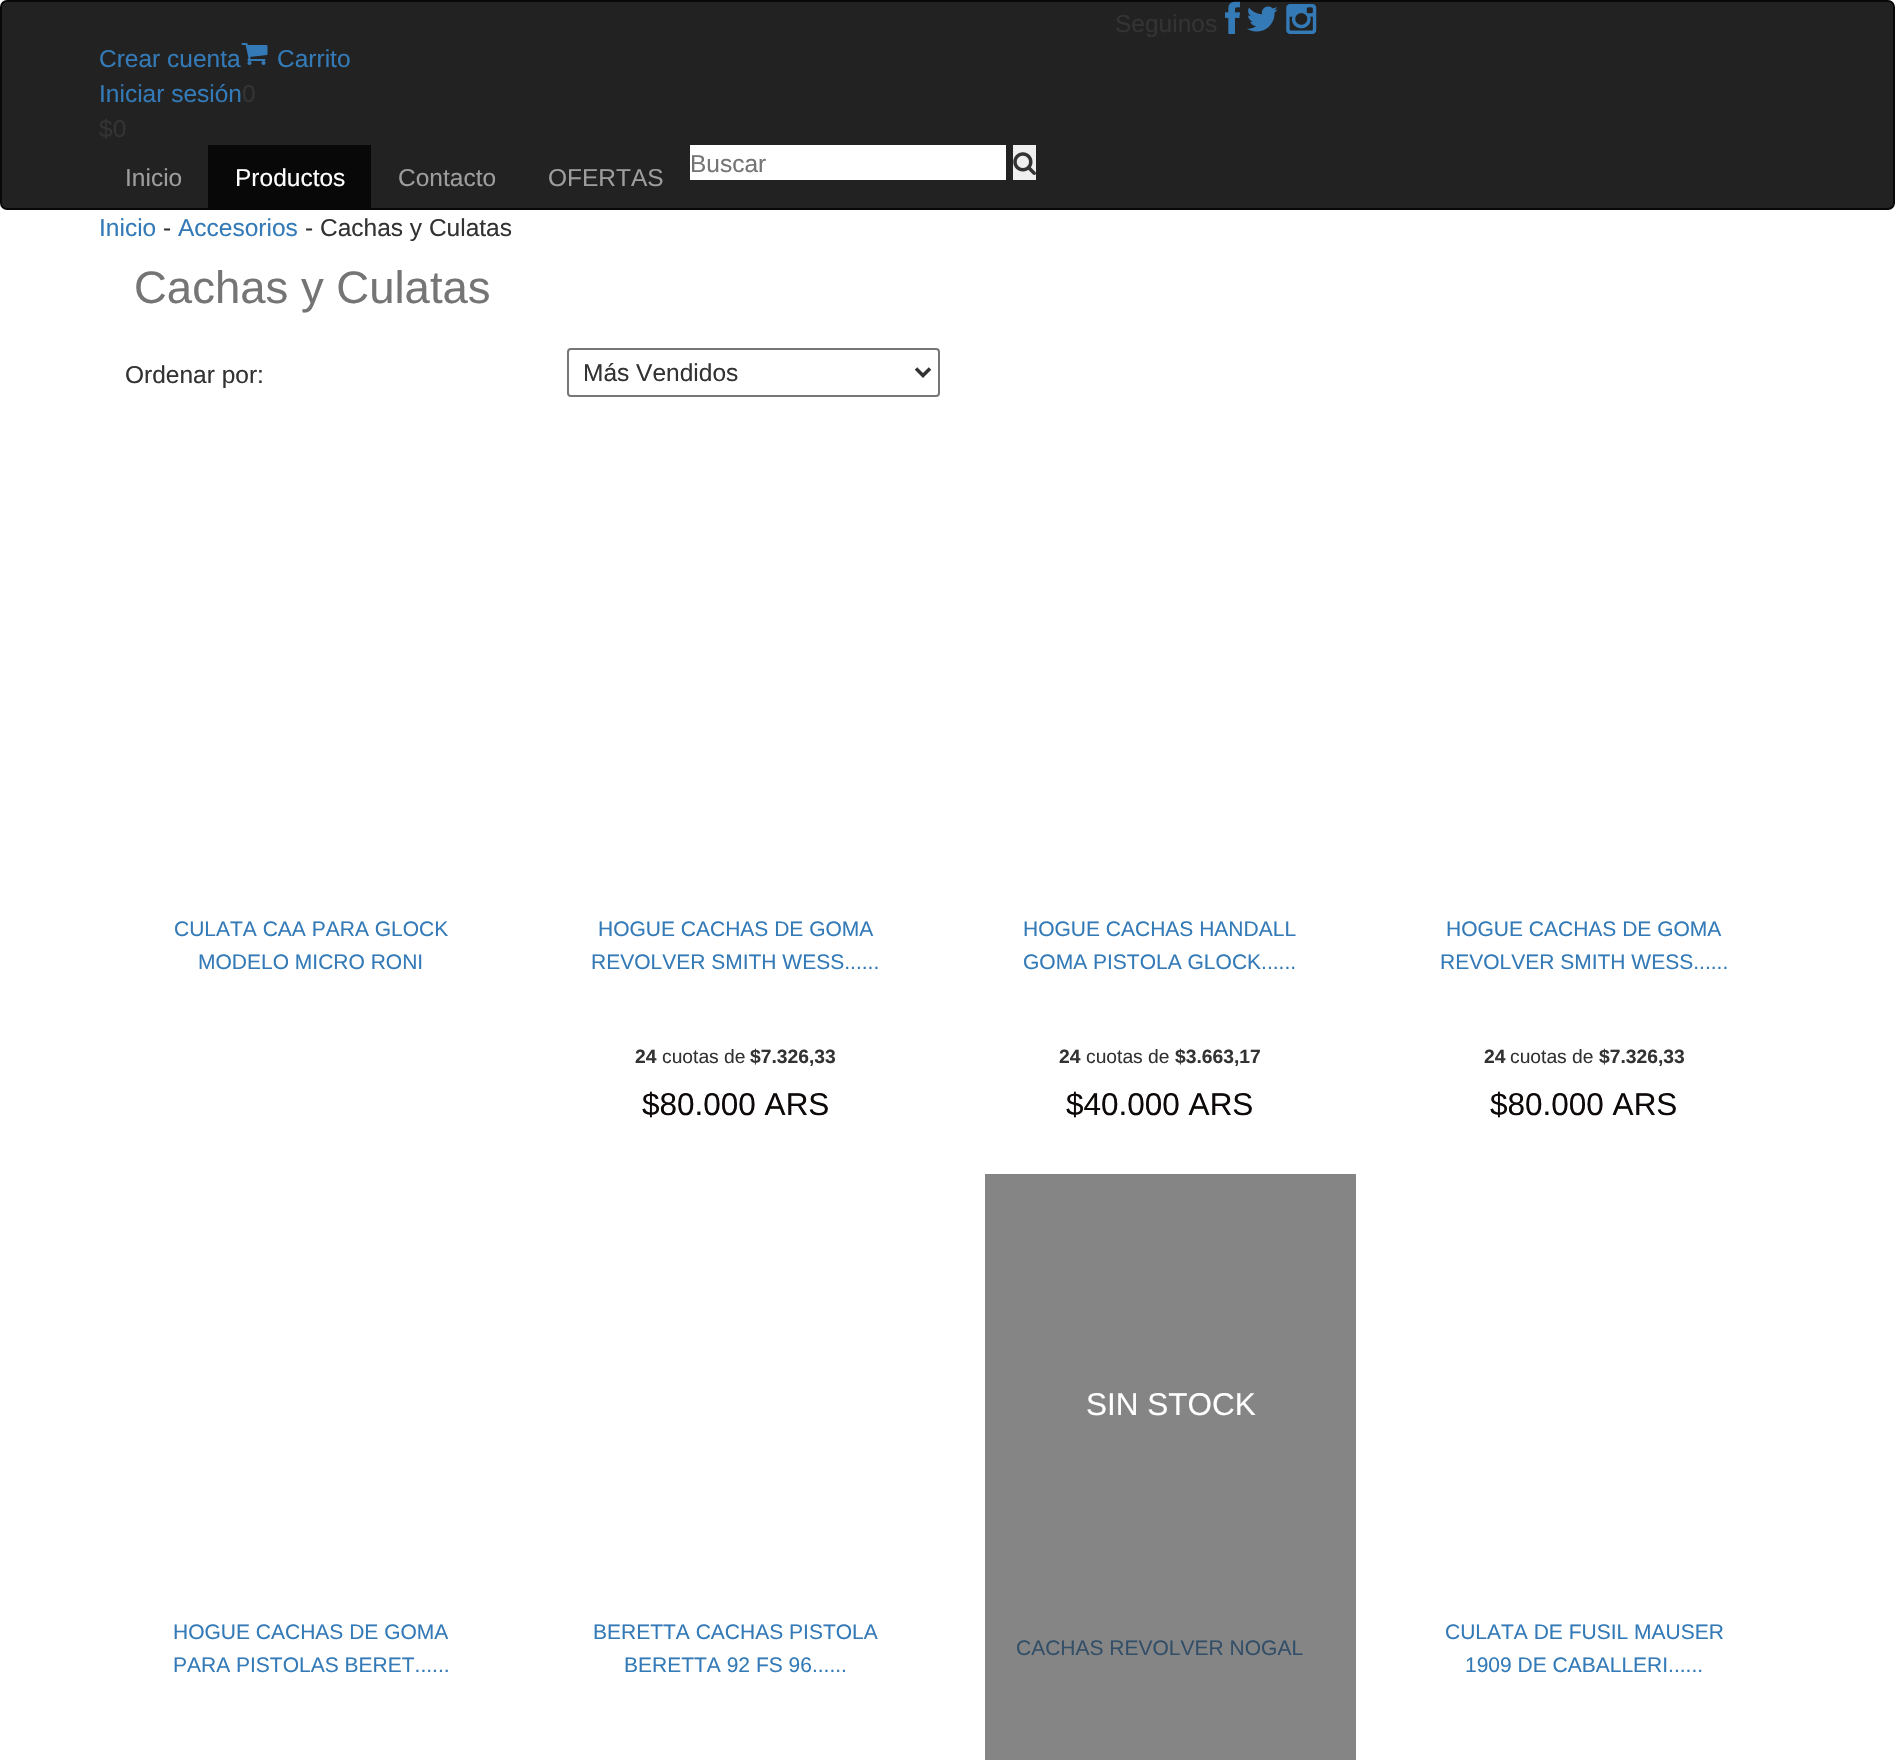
#include "include/core/SkBlurTypes.h"
#include "include/core/SkCanvas.h"
#include "include/core/SkData.h"
#include "include/core/SkFont.h"
#include "include/core/SkFontMgr.h"
#include "include/core/SkImage.h"
#include "include/core/SkMaskFilter.h"
#include "include/core/SkPaint.h"
#include "include/core/SkPathBuilder.h"
#include "include/core/SkTextBlob.h"
#include "include/effects/SkDashPathEffect.h"
#include "include/effects/SkGradientShader.h"
#include "include/utils/SkParsePath.h"

extern sk_sp<SkFontMgr> fontMgr;

void draw(SkCanvas* canvas) {
    SkPaint p;
    p.setAntiAlias(true);
    auto font = [&](const char* family, int weight, float size, bool italic = false) {
        SkFontStyle style(weight, SkFontStyle::kNormal_Width,
            italic ? SkFontStyle::kItalic_Slant : SkFontStyle::kUpright_Slant);
        SkFont result(fontMgr->matchFamilyStyle(family, style), size);
        result.setSubpixel(true);
        return result;
    };
    auto drawPhoto = [&](const char* path, float l, float t, float r, float b) {
        auto image = SkImages::DeferredFromEncodedData(SkData::MakeFromFileName(path));
        canvas->drawImageRect(image, SkRect::MakeLTRB(l, t, r, b), SkSamplingOptions());
    };
    canvas->clear(0xFFFFFFFF);
    p.setColor(0xFF858585);
    canvas->drawRect(SkRect::MakeLTRB(985, 1174, 1356, 1760), p);
    p.setColor(0xFF222222);
    canvas->drawRoundRect(SkRect::MakeLTRB(1, 1, 1894, 209), 6, 6, p);
    p.setStyle(SkPaint::kStroke_Style);
    p.setStrokeWidth(2);
    p.setColor(0xFF080808);
    canvas->drawRoundRect(SkRect::MakeLTRB(1, 1, 1894, 209), 6, 6, p);
    auto font1 = font("Liberation Sans", 400, 24.5f);
    p.setStyle(SkPaint::kFill_Style);
    p.setColor(0xFF333333);
    canvas->drawString("Seguinos", 1115, 32, font1, p);
    drawPhoto("media/1.png", 1225, 1, 1240, 34);
    drawPhoto("media/2.png", 1247, 6, 1278, 32);
    drawPhoto("media/3.png", 1286, 4, 1317, 34);
    drawPhoto("media/4.png", 241, 43, 268, 65);
    p.setColor(0xFF337AB7);
    canvas->drawString("Carrito", 277, 67, font1, p);
    p.setColor(0xFF333333);
    canvas->drawString("0", 242, 102, font1, p);
    canvas->drawString("$0", 99, 137, font1, p);
    p.setColor(0xFF337AB7);
    canvas->drawString("Crear cuenta", 99, 67, font1, p);
    canvas->drawString("Iniciar sesión", 99, 102, font1, p);
    p.setColor(0xFFFFFFFF);
    canvas->drawRect(SkRect::MakeLTRB(690, 145, 1006, 180), p);
    p.setColor(0xFF757575);
    canvas->drawString("Buscar", 690, 172, font1, p);
    p.setColor(0xFFEFEFEF);
    canvas->drawRect(SkRect::MakeLTRB(1013, 145, 1036, 180), p);
    drawPhoto("media/5.png", 1013, 152, 1036, 175);
    p.setColor(0xFF9D9D9D);
    canvas->drawString("Inicio", 125, 186, font1, p);
    p.setColor(0xFF080808);
    canvas->drawRect(SkRect::MakeLTRB(208, 145, 371, 208), p);
    p.setColor(0xFFFFFFFF);
    canvas->drawString("Productos", 235, 186, font1, p);
    p.setColor(0xFF9D9D9D);
    canvas->drawString("Contacto", 398, 186, font1, p);
    canvas->drawString("OFERTAS", 548, 186, font1, p);
    p.setColor(0xFF337AB7);
    canvas->drawString("Inicio", 99, 236, font1, p);
    p.setColor(0xFF333333);
    canvas->drawString("-", 163, 236, font1, p);
    p.setColor(0xFF337AB7);
    canvas->drawString("Accesorios", 178, 236, font1, p);
    p.setColor(0xFF333333);
    canvas->drawString("- Cachas y Culatas", 305, 236, font1, p);
    auto font2 = font("Liberation Sans", 400, 45.5f);
    p.setColor(0xFF757575);
    canvas->drawString("Cachas y Culatas", 134, 303, font2, p);
    p.setColor(0xFF333333);
    canvas->drawString("Ordenar por:", 125, 383, font1, p);
    p.setStyle(SkPaint::kStroke_Style);
    p.setColor(0xFF767676);
    canvas->drawRoundRect(SkRect::MakeLTRB(568, 349, 939, 396), 3, 3, p);
    p.setStrokeWidth(3.5f);
    p.setColor(0xFF333333);
    canvas->drawPath(SkPathBuilder().moveTo(916, 368.5f).lineTo(923, 375.5f).lineTo(930, 368.5f).detach(), p);
    p.setStyle(SkPaint::kFill_Style);
    canvas->drawString("Más Vendidos", 583, 381, font1, p);
    auto font3 = font("Liberation Sans", 400, 21);
    p.setColor(0xFF337AB7);
    {
        const struct { const char* s; float x, y; } items[] = {
            {"CULATA CAA PARA GLOCK", 174, 936},
            {"MODELO MICRO RONI", 198, 969},
            {"HOGUE CACHAS DE GOMA", 598, 936},
            {"REVOLVER SMITH WESS......", 591, 969},
        };
        for (auto [s, x, y] : items) {
            canvas->drawString(s, x, y, font3, p);
        }
    }
    auto font4 = font("Liberation Sans", 700, 19.25f);
    p.setColor(0xFF333333);
    canvas->drawString("24", 635, 1063, font4, p);
    auto font5 = font("Liberation Sans", 400, 19.25f);
    canvas->drawString("cuotas de", 662, 1063, font5, p);
    canvas->drawString("$7.326,33", 750, 1063, font4, p);
    auto font6 = font("Liberation Sans", 400, 31.5f);
    p.setColor(0xFF0E0909);
    canvas->drawString("$80.000 ARS", 642, 1115, font6, p);
    p.setColor(0xFF337AB7);
    canvas->drawString("HOGUE CACHAS HANDALL", 1023, 936, font3, p);
    canvas->drawString("GOMA PISTOLA GLOCK......", 1023, 969, font3, p);
    p.setColor(0xFF333333);
    canvas->drawString("24", 1059, 1063, font4, p);
    canvas->drawString("cuotas de", 1086, 1063, font5, p);
    canvas->drawString("$3.663,17", 1175, 1063, font4, p);
    p.setColor(0xFF0E0909);
    canvas->drawString("$40.000 ARS", 1066, 1115, font6, p);
    p.setColor(0xFF337AB7);
    canvas->drawString("HOGUE CACHAS DE GOMA", 1446, 936, font3, p);
    canvas->drawString("REVOLVER SMITH WESS......", 1440, 969, font3, p);
    p.setColor(0xFF333333);
    canvas->drawString("24", 1484, 1063, font4, p);
    canvas->drawString("cuotas de", 1510, 1063, font5, p);
    canvas->drawString("$7.326,33", 1599, 1063, font4, p);
    p.setColor(0xFF0E0909);
    canvas->drawString("$80.000 ARS", 1490, 1115, font6, p);
    p.setColor(0xFF337AB7);
    {
        const struct { const char* s; float x, y; } items[] = {
            {"HOGUE CACHAS DE GOMA", 173, 1639},
            {"PARA PISTOLAS BERET......", 173, 1672},
            {"BERETTA CACHAS PISTOLA", 593, 1639},
            {"BERETTA 92 FS 96......", 624, 1672},
        };
        for (auto [s, x, y] : items) {
            canvas->drawString(s, x, y, font3, p);
        }
    }
    p.setColor(0xFFFFFFFF);
    canvas->drawString("SIN STOCK", 1086, 1415, font6, p);
    p.setColor(0xFF334F68);
    canvas->drawString("CACHAS REVOLVER NOGAL", 1016, 1655, font3, p);
    p.setColor(0xFF337AB7);
    canvas->drawString("CULATA DE FUSIL MAUSER", 1445, 1639, font3, p);
    canvas->drawString("1909 DE CABALLERI......", 1465, 1672, font3, p);
}
